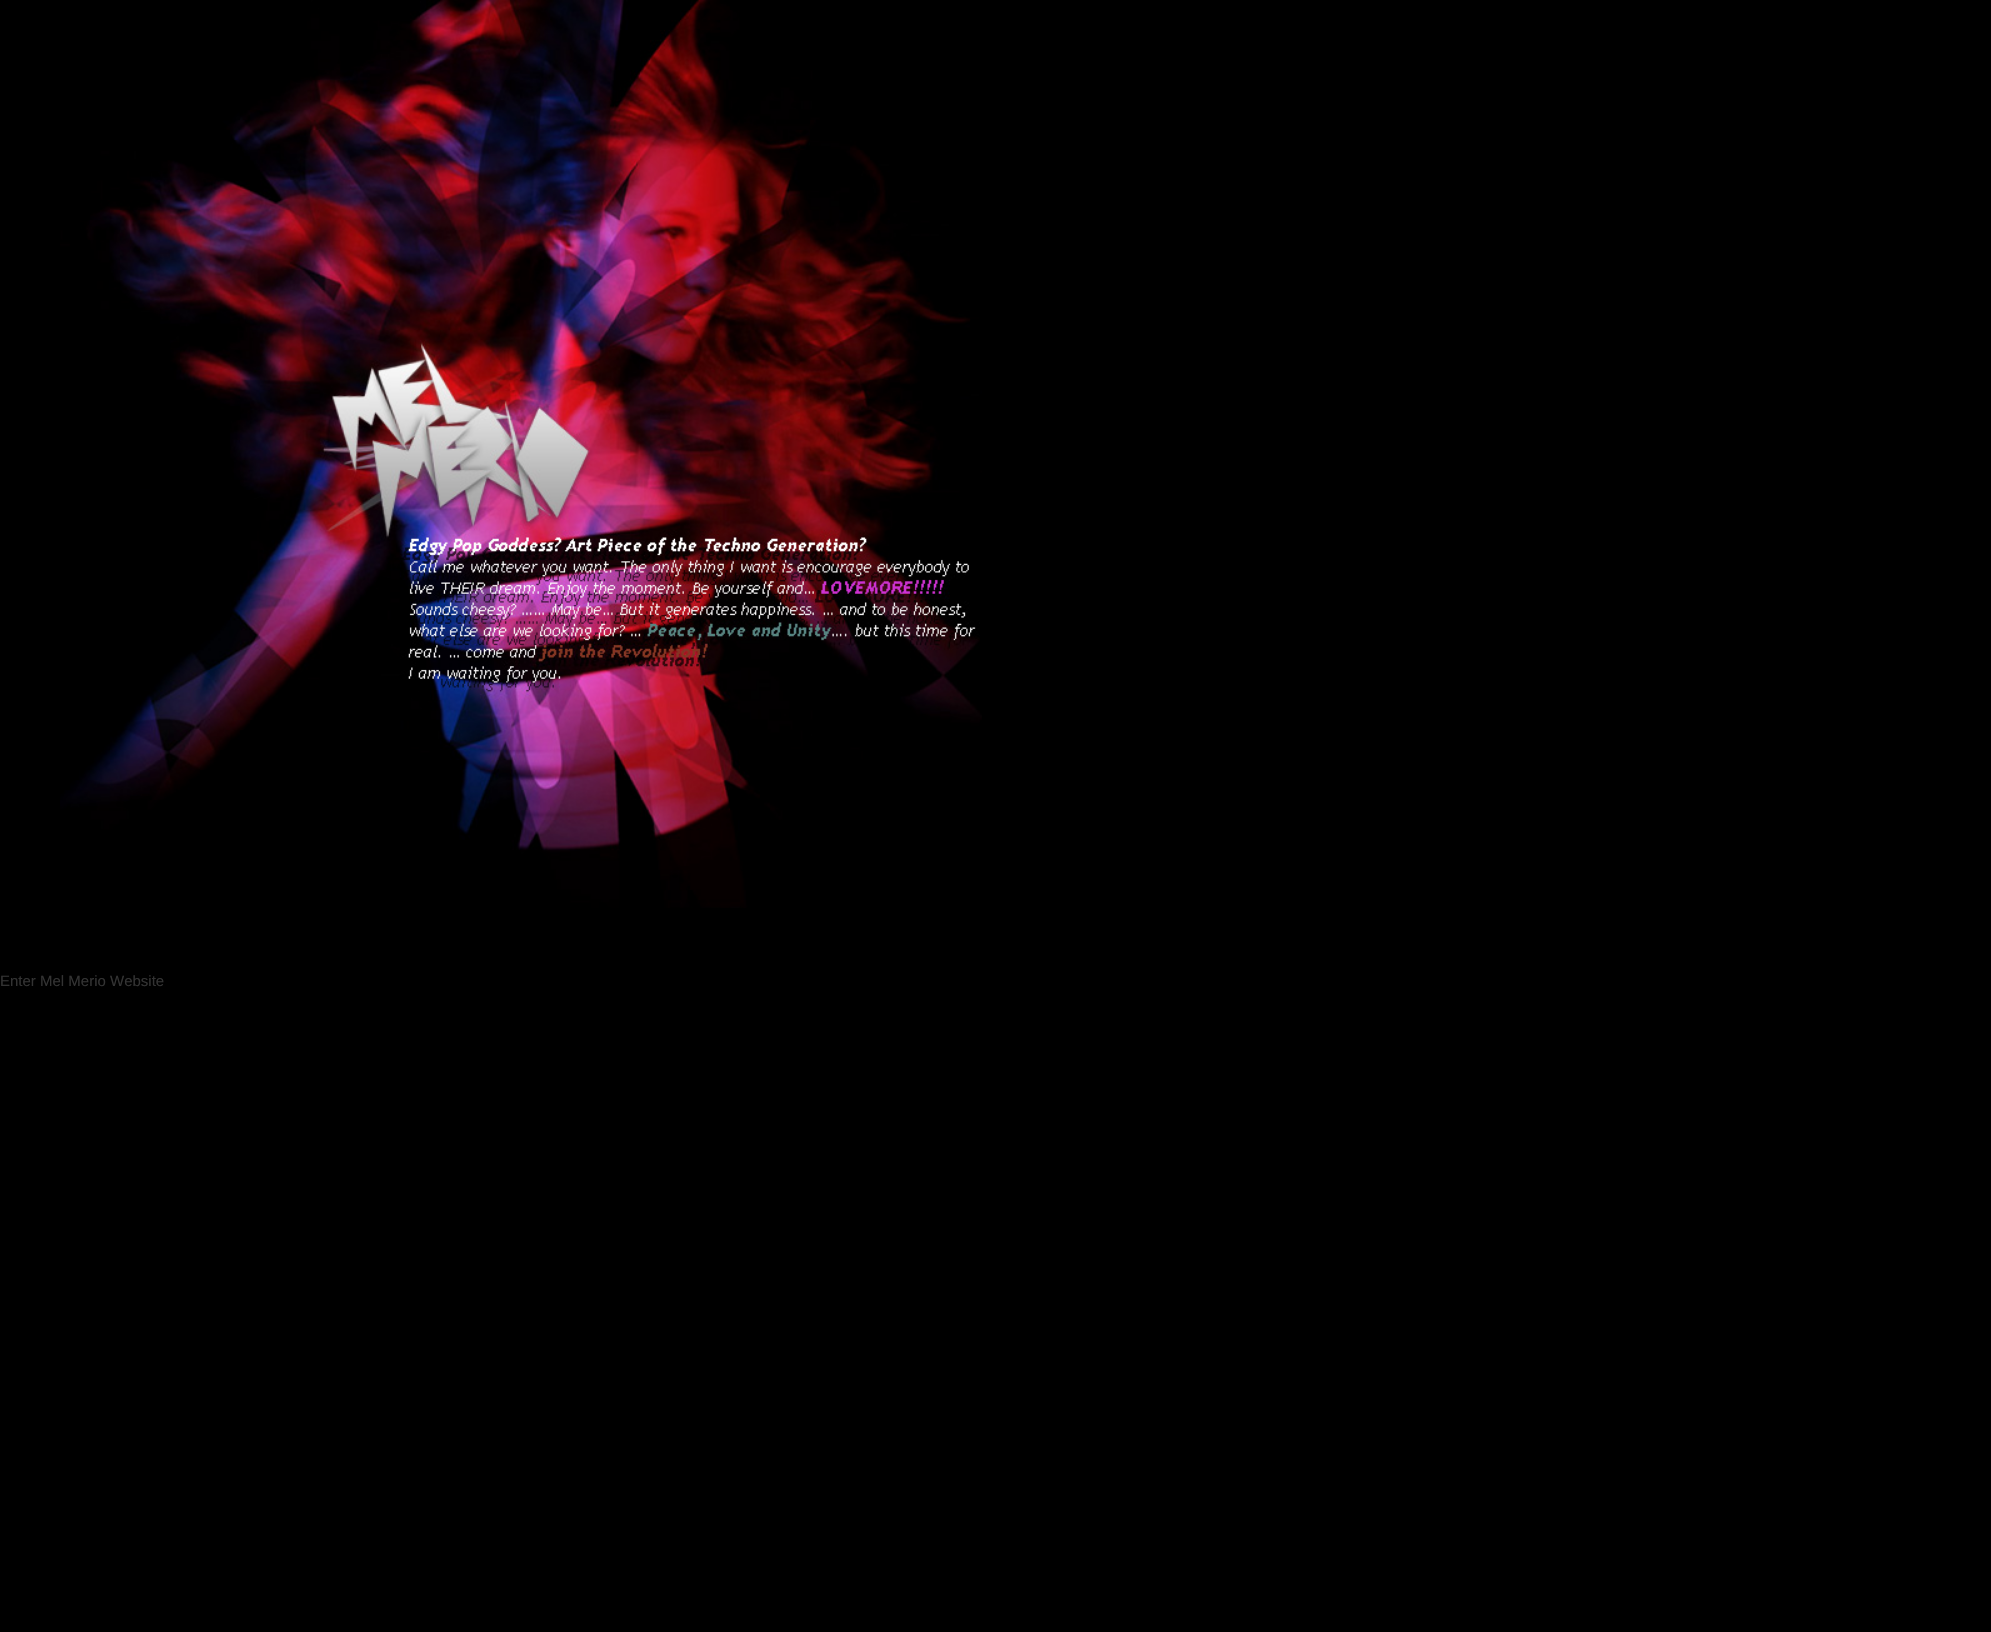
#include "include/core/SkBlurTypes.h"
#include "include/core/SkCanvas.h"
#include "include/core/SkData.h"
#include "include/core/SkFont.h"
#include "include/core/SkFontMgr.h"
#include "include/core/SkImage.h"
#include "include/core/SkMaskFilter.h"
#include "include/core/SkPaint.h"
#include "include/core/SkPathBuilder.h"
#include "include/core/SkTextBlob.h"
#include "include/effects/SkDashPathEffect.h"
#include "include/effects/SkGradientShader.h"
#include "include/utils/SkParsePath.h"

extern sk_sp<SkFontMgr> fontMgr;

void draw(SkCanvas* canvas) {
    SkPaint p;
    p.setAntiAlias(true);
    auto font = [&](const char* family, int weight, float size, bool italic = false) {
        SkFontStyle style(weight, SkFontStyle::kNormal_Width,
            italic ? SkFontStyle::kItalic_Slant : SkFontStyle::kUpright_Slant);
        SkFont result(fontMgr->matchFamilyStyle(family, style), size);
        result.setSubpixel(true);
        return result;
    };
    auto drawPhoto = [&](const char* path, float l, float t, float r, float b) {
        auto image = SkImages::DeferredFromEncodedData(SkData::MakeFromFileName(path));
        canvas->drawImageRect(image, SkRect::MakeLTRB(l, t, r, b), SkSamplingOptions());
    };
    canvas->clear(0xFF000000);
    drawPhoto("media/1.png", 60, 0, 982, 908);
    auto font1 = font("Liberation Sans", 400, 15);
    p.setColor(0xFF333333);
    canvas->drawString("Enter Mel Merio Website", 0, 986, font1, p);
}
